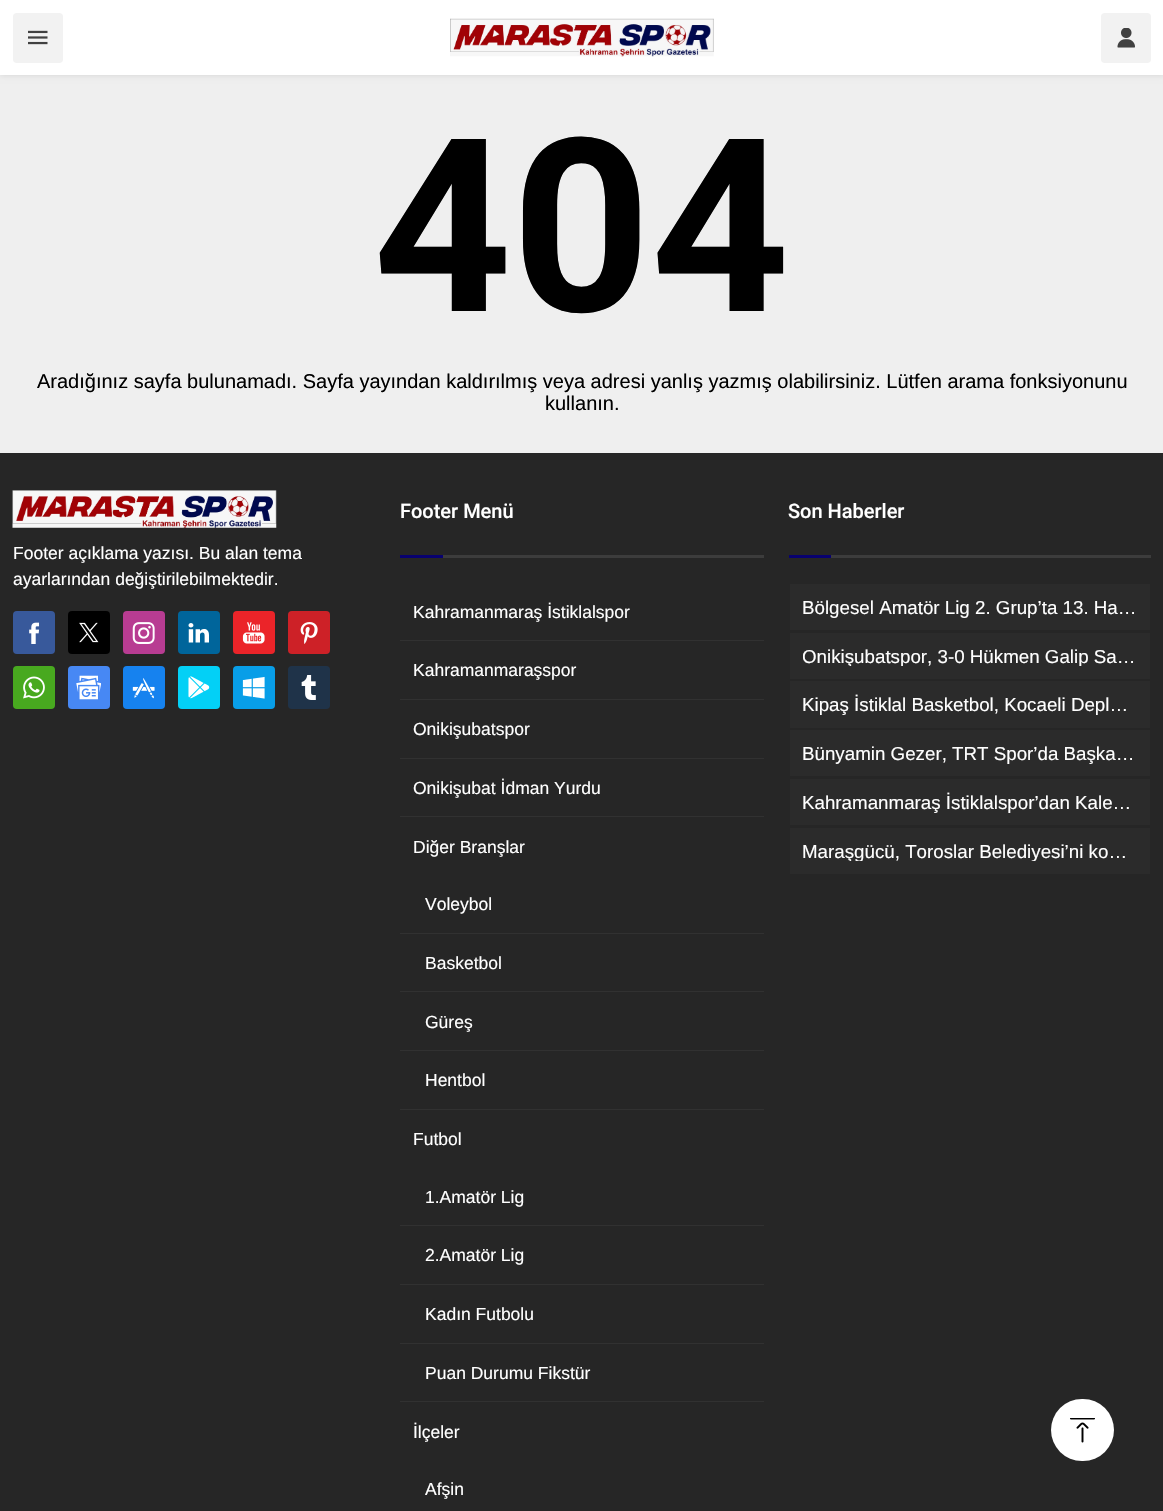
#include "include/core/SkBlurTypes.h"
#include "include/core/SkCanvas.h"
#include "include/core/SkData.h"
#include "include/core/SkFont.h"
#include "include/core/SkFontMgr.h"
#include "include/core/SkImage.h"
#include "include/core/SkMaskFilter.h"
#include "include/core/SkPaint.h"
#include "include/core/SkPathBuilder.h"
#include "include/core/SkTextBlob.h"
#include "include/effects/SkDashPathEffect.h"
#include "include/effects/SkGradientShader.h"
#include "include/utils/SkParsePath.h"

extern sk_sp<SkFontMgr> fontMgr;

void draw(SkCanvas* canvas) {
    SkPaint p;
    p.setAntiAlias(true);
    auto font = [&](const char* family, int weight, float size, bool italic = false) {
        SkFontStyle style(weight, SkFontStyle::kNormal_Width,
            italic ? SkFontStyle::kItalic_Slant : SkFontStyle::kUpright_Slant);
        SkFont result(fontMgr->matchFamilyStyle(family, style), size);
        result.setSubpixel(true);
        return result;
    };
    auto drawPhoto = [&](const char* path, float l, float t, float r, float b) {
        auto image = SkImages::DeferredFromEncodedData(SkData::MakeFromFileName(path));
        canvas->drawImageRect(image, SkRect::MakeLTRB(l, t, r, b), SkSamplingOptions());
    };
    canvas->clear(0xFFEFEFEF);
    p.setColor(0x1F000000);
    p.setMaskFilter(SkMaskFilter::MakeBlur(kNormal_SkBlurStyle, 3));
    canvas->drawRect(SkRect::MakeLTRB(0, 0, 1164, 75), p);
    p.setMaskFilter(nullptr);
    p.setColor(0xFFFFFFFF);
    canvas->drawRect(SkRect::MakeLTRB(0, 0, 1163, 75), p);
    p.setColor(0xFFF2F2F2);
    canvas->drawRoundRect(SkRect::MakeLTRB(13, 13, 63, 63), 4, 4, p);
    drawPhoto("media/1.png", 28, 30, 48, 45);
    drawPhoto("media/2.png", 450, 18, 714, 57);
    canvas->drawRoundRect(SkRect::MakeLTRB(1101, 13, 1151, 63), 4, 4, p);
    drawPhoto("media/3.png", 1117, 28, 1135, 48);
    auto font1 = font("Roboto", 700, 242);
    p.setColor(0xFF000000);
    canvas->drawString("404", 373, 311, font1, p);
    auto font2 = font("Liberation Sans", 400, 20);
    canvas->drawString("Aradığınız sayfa bulunamadı. Sayfa yayından kaldırılmış veya adresi yanlış yazmış olabilirsiniz. Lütfen arama fonksiyonunu", 37, 388, font2, p);
    canvas->drawString("kullanın.", 545, 410, font2, p);
    p.setColor(0xFF262626);
    canvas->drawRect(SkRect::MakeLTRB(0, 453, 1163, 1511), p);
    drawPhoto("media/4.png", 12, 490, 277, 528);
    auto font3 = font("Liberation Sans", 400, 17.5f);
    p.setColor(0xFFFFFFFF);
    canvas->drawString("Footer açıklama yazısı. Bu alan tema", 13, 559, font3, p);
    canvas->drawString("ayarlarından değiştirilebilmektedir.", 13, 585, font3, p);
    p.setColor(0xFF38599B);
    canvas->drawRoundRect(SkRect::MakeLTRB(13, 611, 55, 654), 4, 4, p);
    drawPhoto("media/5.png", 29, 622, 40, 644);
    p.setColor(0xFF000000);
    canvas->drawRoundRect(SkRect::MakeLTRB(68, 611, 110, 654), 4, 4, p);
    drawPhoto("media/6.png", 79, 622, 99, 643);
    p.setColor(0xFFB83C92);
    canvas->drawRoundRect(SkRect::MakeLTRB(123, 611, 165, 654), 4, 4, p);
    drawPhoto("media/7.png", 132, 622, 155, 644);
    p.setColor(0xFF00659B);
    canvas->drawRoundRect(SkRect::MakeLTRB(178, 611, 220, 654), 4, 4, p);
    drawPhoto("media/8.png", 188, 623, 209, 643);
    p.setColor(0xFFEB2429);
    canvas->drawRoundRect(SkRect::MakeLTRB(233, 611, 275, 654), 4, 4, p);
    drawPhoto("media/9.png", 242, 622, 265, 644);
    p.setColor(0xFFCD2127);
    canvas->drawRoundRect(SkRect::MakeLTRB(288, 611, 330, 654), 4, 4, p);
    drawPhoto("media/10.png", 300, 622, 318, 644);
    p.setColor(0xFF48A91F);
    canvas->drawRoundRect(SkRect::MakeLTRB(13, 666, 55, 709), 4, 4, p);
    drawPhoto("media/11.png", 23, 676, 45, 699);
    p.setColor(0xFF4788F4);
    canvas->drawRoundRect(SkRect::MakeLTRB(68, 666, 110, 709), 4, 4, p);
    drawPhoto("media/12.png", 76, 675, 101, 700);
    p.setColor(0xFF1682EF);
    canvas->drawRoundRect(SkRect::MakeLTRB(123, 666, 165, 709), 4, 4, p);
    drawPhoto("media/13.png", 132, 678, 155, 699);
    p.setColor(0xFF03D0F6);
    canvas->drawRoundRect(SkRect::MakeLTRB(178, 666, 220, 709), 4, 4, p);
    drawPhoto("media/14.png", 188, 676, 210, 699);
    p.setColor(0xFF089EE8);
    canvas->drawRoundRect(SkRect::MakeLTRB(233, 666, 275, 709), 4, 4, p);
    drawPhoto("media/15.png", 242, 676, 265, 699);
    p.setColor(0xFF1F3349);
    canvas->drawRoundRect(SkRect::MakeLTRB(288, 666, 330, 709), 4, 4, p);
    drawPhoto("media/16.png", 301, 675, 316, 700);
    p.setColor(0xFF3C3C3C);
    canvas->drawRect(SkRect::MakeLTRB(443, 555, 764, 558), p);
    auto font4 = font("Roboto", 500, 20);
    p.setColor(0xFFFFFFFF);
    canvas->drawString("Footer Menü", 400, 518, font4, p);
    p.setColor(0xFF080170);
    canvas->drawRect(SkRect::MakeLTRB(400, 555, 443, 558), p);
    p.setColor(0xFFFFFFFF);
    canvas->drawString("Kahramanmaraş İstiklalspor", 413, 618, font3, p);
    p.setColor(0xFF313131);
    canvas->drawRect(SkRect::MakeLTRB(400, 640, 764, 641), p);
    p.setColor(0xFFFFFFFF);
    canvas->drawString("Kahramanmaraşspor", 413, 676, font3, p);
    p.setColor(0xFF313131);
    canvas->drawRect(SkRect::MakeLTRB(400, 699, 764, 700), p);
    p.setColor(0xFFFFFFFF);
    canvas->drawString("Onikişubatspor", 413, 735, font3, p);
    p.setColor(0xFF313131);
    canvas->drawRect(SkRect::MakeLTRB(400, 758, 764, 759), p);
    p.setColor(0xFFFFFFFF);
    canvas->drawString("Onikişubat İdman Yurdu", 413, 794, font3, p);
    p.setColor(0xFF313131);
    canvas->drawRect(SkRect::MakeLTRB(400, 816, 764, 817), p);
    p.setColor(0xFFFFFFFF);
    canvas->drawString("Diğer Branşlar", 413, 853, font3, p);
    canvas->drawString("Voleybol", 425, 910, font3, p);
    p.setColor(0xFF313131);
    canvas->drawRect(SkRect::MakeLTRB(400, 933, 764, 934), p);
    p.setColor(0xFFFFFFFF);
    canvas->drawString("Basketbol", 425, 969, font3, p);
    p.setColor(0xFF313131);
    canvas->drawRect(SkRect::MakeLTRB(400, 991, 764, 992), p);
    p.setColor(0xFFFFFFFF);
    canvas->drawString("Güreş", 425, 1028, font3, p);
    p.setColor(0xFF313131);
    canvas->drawRect(SkRect::MakeLTRB(400, 1050, 764, 1051), p);
    p.setColor(0xFFFFFFFF);
    canvas->drawString("Hentbol", 425, 1086, font3, p);
    p.setColor(0xFF313131);
    canvas->drawRect(SkRect::MakeLTRB(400, 1109, 764, 1110), p);
    p.setColor(0xFFFFFFFF);
    canvas->drawString("Futbol", 413, 1145, font3, p);
    canvas->drawString("1.Amatör Lig", 425, 1203, font3, p);
    p.setColor(0xFF313131);
    canvas->drawRect(SkRect::MakeLTRB(400, 1225, 764, 1226), p);
    p.setColor(0xFFFFFFFF);
    canvas->drawString("2.Amatör Lig", 425, 1261, font3, p);
    p.setColor(0xFF313131);
    canvas->drawRect(SkRect::MakeLTRB(400, 1284, 764, 1285), p);
    p.setColor(0xFFFFFFFF);
    canvas->drawString("Kadın Futbolu", 425, 1320, font3, p);
    p.setColor(0xFF313131);
    canvas->drawRect(SkRect::MakeLTRB(400, 1343, 764, 1344), p);
    p.setColor(0xFFFFFFFF);
    canvas->drawString("Puan Durumu Fikstür", 425, 1379, font3, p);
    p.setColor(0xFF313131);
    canvas->drawRect(SkRect::MakeLTRB(400, 1401, 764, 1402), p);
    p.setColor(0xFFFFFFFF);
    canvas->drawString("İlçeler", 413, 1438, font3, p);
    canvas->drawString("Afşin", 425, 1495, font3, p);
    p.setColor(0xFF3C3C3C);
    canvas->drawRect(SkRect::MakeLTRB(831, 555, 1151, 558), p);
    p.setColor(0xFFFFFFFF);
    canvas->drawString("Son Haberler", 788, 518, font4, p);
    p.setColor(0xFF080170);
    canvas->drawRect(SkRect::MakeLTRB(789, 555, 831, 558), p);
    p.setColor(0xFF2B2B2B);
    canvas->drawRect(SkRect::MakeLTRB(790, 584, 1150, 630), p);
    auto font5 = font("Liberation Sans", 400, 18.75f);
    p.setColor(0xFFFFFFFF);
    canvas->drawString("Bölgesel Amatör Lig 2. Grup’ta 13. Ha…", 802, 614, font5, p);
    p.setColor(0xFF2B2B2B);
    canvas->drawRect(SkRect::MakeLTRB(790, 633, 1150, 679), p);
    canvas->save();
    canvas->clipRect(SkRect::MakeLTRB(803, 645, 1138, 666));
    p.setColor(0xFFFFFFFF);
    canvas->drawString("Onikişubatspor, 3-0 Hükmen Galip Sa…", 802, 663, font5, p);
    canvas->restore();
    p.setColor(0xFF2B2B2B);
    canvas->drawRect(SkRect::MakeLTRB(790, 681, 1150, 728), p);
    p.setColor(0xFFFFFFFF);
    canvas->drawString("Kipaş İstiklal Basketbol, Kocaeli Depl…", 802, 711, font5, p);
    p.setColor(0xFF2B2B2B);
    canvas->drawRect(SkRect::MakeLTRB(790, 730, 1150, 776), p);
    p.setColor(0xFFFFFFFF);
    canvas->drawString("Bünyamin Gezer, TRT Spor’da Başka…", 802, 760, font5, p);
    p.setColor(0xFF2B2B2B);
    canvas->drawRect(SkRect::MakeLTRB(790, 779, 1150, 825), p);
    p.setColor(0xFFFFFFFF);
    canvas->drawString("Kahramanmaraş İstiklalspor’dan Kale…", 802, 809, font5, p);
    p.setColor(0xFF2B2B2B);
    canvas->drawRect(SkRect::MakeLTRB(790, 828, 1150, 874), p);
    canvas->save();
    canvas->clipRect(SkRect::MakeLTRB(803, 840, 1138, 861));
    p.setColor(0xFFFFFFFF);
    canvas->drawString("Maraşgücü, Toroslar Belediyesi’ni ko…", 802, 858, font5, p);
    canvas->restore();
    canvas->drawRoundRect(SkRect::MakeLTRB(1051, 1399, 1114, 1461), 31, 31, p);
    drawPhoto("media/17.png", 1070, 1418, 1095, 1443);
}
